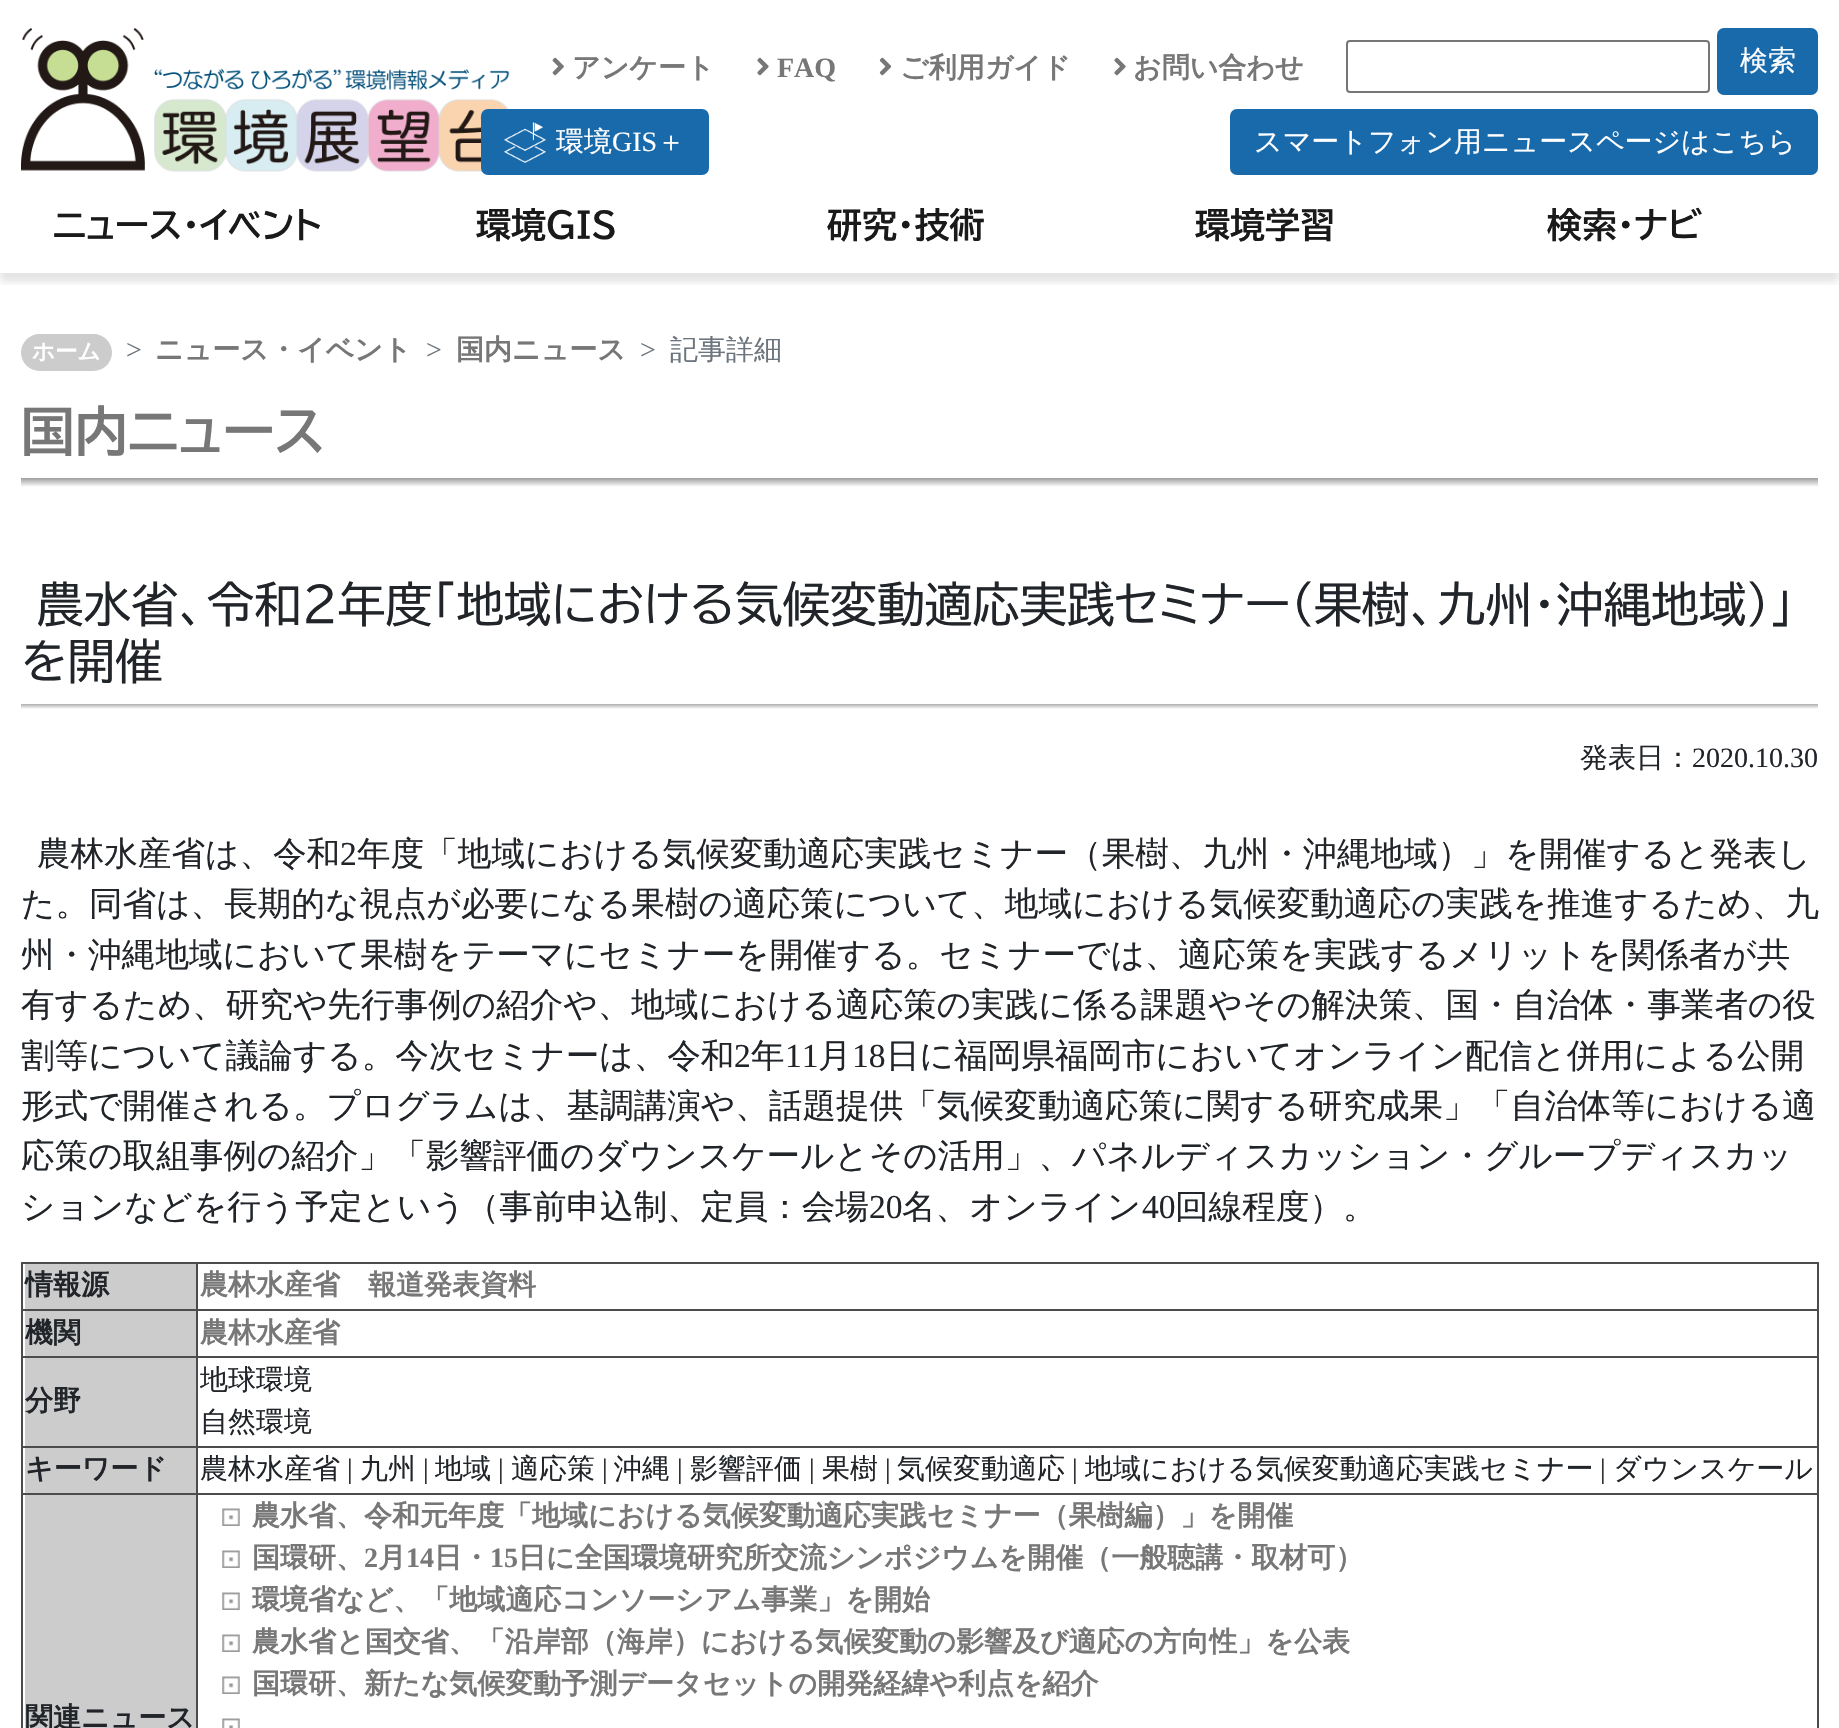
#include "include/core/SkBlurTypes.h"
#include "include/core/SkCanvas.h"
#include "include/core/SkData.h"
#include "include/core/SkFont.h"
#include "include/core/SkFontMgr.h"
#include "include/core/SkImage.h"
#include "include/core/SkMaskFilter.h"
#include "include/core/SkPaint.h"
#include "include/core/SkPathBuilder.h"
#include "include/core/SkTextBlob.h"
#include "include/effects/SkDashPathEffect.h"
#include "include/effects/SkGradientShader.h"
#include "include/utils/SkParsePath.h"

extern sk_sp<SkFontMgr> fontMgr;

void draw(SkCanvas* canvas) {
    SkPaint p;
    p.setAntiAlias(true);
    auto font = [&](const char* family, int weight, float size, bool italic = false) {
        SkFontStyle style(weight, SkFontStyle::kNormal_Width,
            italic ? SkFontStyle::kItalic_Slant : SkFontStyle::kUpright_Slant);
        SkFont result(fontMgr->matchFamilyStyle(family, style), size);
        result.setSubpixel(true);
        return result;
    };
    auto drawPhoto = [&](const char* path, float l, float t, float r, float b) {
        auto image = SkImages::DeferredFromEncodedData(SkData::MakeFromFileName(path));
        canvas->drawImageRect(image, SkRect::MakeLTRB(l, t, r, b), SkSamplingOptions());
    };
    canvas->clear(0xFFFFFFFF);
    canvas->save();
    canvas->clipRect(SkRect::MakeLTRB(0, 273, 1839, 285));
    p.setColor(0x1A000000);
    p.setMaskFilter(SkMaskFilter::MakeBlur(kNormal_SkBlurStyle, 3.5f));
    canvas->drawRect(SkRect::MakeLTRB(0, 37, 1839, 282), p);
    p.setMaskFilter(nullptr);
    canvas->restore();
    drawPhoto("media/1.png", 21, 28, 510, 172);
    drawPhoto("media/2.png", 552, 57, 564, 76);
    auto font1 = font("WenQuanYi Zen Hei", 700, 28);
    p.setColor(0xFF777777);
    canvas->drawString("アンケート", 572, 77, font1, p);
    drawPhoto("media/3.png", 757, 57, 769, 76);
    auto font2 = font("Liberation Serif", 700, 28);
    canvas->drawString("FAQ", 777, 77, font2, p);
    drawPhoto("media/4.png", 879, 57, 892, 76);
    canvas->drawString("ご利用ガイド", 900, 77, font1, p);
    drawPhoto("media/3.png", 1114, 57, 1126, 76);
    canvas->drawString("お問い合わせ", 1133, 77, font1, p);
    p.setStyle(SkPaint::kStroke_Style);
    p.setStrokeWidth(2);
    p.setColor(0xFF767676);
    canvas->drawRoundRect(SkRect::MakeLTRB(1347, 41, 1709, 92), 3, 3, p);
    p.setStyle(SkPaint::kFill_Style);
    p.setColor(0xFF196AAB);
    canvas->drawRoundRect(SkRect::MakeLTRB(1718, 29, 1817, 94), 6, 6, p);
    p.setStyle(SkPaint::kStroke_Style);
    canvas->drawRoundRect(SkRect::MakeLTRB(1718, 29, 1817, 94), 6, 6, p);
    auto font3 = font("WenQuanYi Zen Hei", 500, 28);
    p.setStyle(SkPaint::kFill_Style);
    p.setColor(0xFFFFFFFF);
    canvas->drawString("検索", 1740, 70, font3, p);
    p.setColor(0xFF196AAB);
    canvas->drawRoundRect(SkRect::MakeLTRB(482, 110, 708, 174), 6, 6, p);
    p.setStyle(SkPaint::kStroke_Style);
    canvas->drawRoundRect(SkRect::MakeLTRB(482, 110, 708, 174), 6, 6, p);
    drawPhoto("media/5.png", 504, 122, 546, 163);
    p.setStyle(SkPaint::kFill_Style);
    p.setColor(0xFFFFFFFF);
    canvas->drawString("環境", 556, 151, font3, p);
    auto font4 = font("Liberation Serif", 400, 28);
    canvas->drawString("GIS", 612, 151, font4, p);
    canvas->drawString("＋", 657, 151, font3, p);
    p.setColor(0xFF196AAB);
    canvas->drawRoundRect(SkRect::MakeLTRB(1231, 110, 1817, 174), 6, 6, p);
    p.setStyle(SkPaint::kStroke_Style);
    canvas->drawRoundRect(SkRect::MakeLTRB(1231, 110, 1817, 174), 6, 6, p);
    p.setStyle(SkPaint::kFill_Style);
    p.setColor(0xFFFFFFFF);
    canvas->drawString("スマートフォン用ニュースページはこちら", 1254, 151, font3, p);
    auto font5 = font("BIZ UDPGothic", 700, 35);
    p.setColor(0xFF1A1A1A);
    {
        const struct { const char* s; float x, y; } items[] = {
            {"ニュース・イベント", 53, 238},
            {"環境GIS", 476, 238},
            {"研究・技術", 827, 238},
            {"環境学習", 1195, 238},
            {"検索・ナビ", 1547, 238},
        };
        for (auto [s, x, y] : items) {
            canvas->drawString(s, x, y, font5, p);
        }
    }
    p.setColor(0xFFCCCCCC);
    canvas->drawRoundRect(SkRect::MakeLTRB(21, 334, 112, 371), 18.5f, 18.5f, p);
    auto font6 = font("WenQuanYi Zen Hei", 700, 22.5f);
    p.setColor(0xFFFFFFFF);
    canvas->drawString("ホーム", 32, 359, font6, p);
    p.setColor(0xFF6C757D);
    canvas->drawString(">", 126, 359, font4, p);
    p.setColor(0xFF777777);
    canvas->drawString("ニュース・イベント", 155, 359, font1, p);
    p.setColor(0xFF6C757D);
    canvas->drawString(">", 426, 359, font4, p);
    p.setColor(0xFF777777);
    canvas->drawString("国内ニュース", 456, 359, font1, p);
    p.setColor(0xFF6C757D);
    canvas->drawString(">", 640, 359, font4, p);
    canvas->drawString("記事詳細", 670, 359, font3, p);
    auto font7 = font("BIZ UDPGothic", 700, 53.5f);
    p.setColor(0xFF777777);
    canvas->drawString("国内ニュース", 21, 451, font7, p);
    {
        const SkColor colors[] = {0xFF9E9E9E, 0xFFFFFFFF};
        const float stops[] = {0, 1};
        const SkPoint ends[] = {{920, 478}, {920, 487}};
        p.setShader(SkGradientShader::MakeLinear(ends, colors, stops, 2, SkTileMode::kClamp));
        p.setAlpha(255);
    }
    canvas->drawRect(SkRect::MakeLTRB(21, 478, 1818, 487), p);
    auto font8 = font("BIZ UDPGothic", 400, 47.45f);
    p.setShader(nullptr);
    p.setColor(0xFF212529);
    canvas->drawString("農水省、令和2年度「地域における気候変動適応実践セミナー（果樹、九州・沖縄地域）」", 36, 622, font8, p);
    canvas->drawString("を開催", 21, 679, font8, p);
    {
        const SkColor colors[] = {0xFF9E9E9E, 0xFFFFFFFF};
        const float stops[] = {0, 1};
        const SkPoint ends[] = {{920, 703}, {920, 709}};
        p.setShader(SkGradientShader::MakeLinear(ends, colors, stops, 2, SkTileMode::kClamp));
        p.setAlpha(255);
    }
    canvas->drawRect(SkRect::MakeLTRB(21, 704, 1818, 709), p);
    p.setShader(nullptr);
    p.setColor(0xFF212529);
    canvas->drawString("発表日：", 1580, 767, font3, p);
    canvas->drawString("2020.10.30", 1692, 767, font4, p);
    auto font9 = font("WenQuanYi Zen Hei", 500, 33.6f);
    canvas->drawString("農林水産省は、令和", 37, 865, font9, p);
    auto font10 = font("Liberation Serif", 400, 33.6f);
    canvas->drawString("2", 340, 865, font10, p);
    {
        const struct { const char* s; float x, y; } items[] = {
            {"年度「地域における気候変動適応実践セミナー（果樹、九州・沖縄地域）」を開催すると発表し", 357, 865},
            {"た。同省は、長期的な視点が必要になる果樹の適応策について、地域における気候変動適応の実践を推進するため、九", 21, 915},
            {"州・沖縄地域において果樹をテーマにセミナーを開催する。セミナーでは、適応策を実践するメリットを関係者が共", 21, 966},
            {"有するため、研究や先行事例の紹介や、地域における適応策の実践に係る課題やその解決策、国・自治体・事業者の役", 21, 1016},
            {"割等について議論する。今次セミナーは、令和", 21, 1067},
        };
        for (auto [s, x, y] : items) {
            canvas->drawString(s, x, y, font9, p);
        }
    }
    canvas->drawString("2", 734, 1067, font10, p);
    canvas->drawString("年", 751, 1067, font9, p);
    canvas->drawString("11", 785, 1067, font10, p);
    canvas->drawString("月", 818, 1067, font9, p);
    canvas->drawString("18", 852, 1067, font10, p);
    {
        const struct { const char* s; float x, y; } items[] = {
            {"日に福岡県福岡市においてオンライン配信と併用による公開", 886, 1067},
            {"形式で開催される。プログラムは、基調講演や、話題提供「気候変動適応策に関する研究成果」「自治体等における適", 21, 1117},
            {"応策の取組事例の紹介」「影響評価のダウンスケールとその活用」、パネルディスカッション・グループディスカッ", 21, 1167},
            {"ションなどを行う予定という（事前申込制、定員：会場", 21, 1218},
        };
        for (auto [s, x, y] : items) {
            canvas->drawString(s, x, y, font9, p);
        }
    }
    canvas->drawString("20", 869, 1218, font10, p);
    canvas->drawString("名、オンライン", 902, 1218, font9, p);
    canvas->drawString("40", 1142, 1218, font10, p);
    canvas->drawString("回線程度）。", 1175, 1218, font9, p);
    p.setColor(0xFF4C4C4C);
    canvas->drawRect(SkRect::MakeLTRB(21, 1262, 1818, 1264), p);
    p.setColor(0xFFCCCCCC);
    canvas->drawRect(SkRect::MakeLTRB(25, 1264, 196, 1309), p);
    p.setColor(0xFF212529);
    canvas->drawString("情報源", 25, 1294, font1, p);
    p.setColor(0xFF777777);
    canvas->drawString("農林水産省　報道発表資料", 200, 1294, font1, p);
    p.setColor(0xFF4C4C4C);
    canvas->drawRect(SkRect::MakeLTRB(21, 1309, 1818, 1311), p);
    p.setColor(0xFFCCCCCC);
    canvas->drawRect(SkRect::MakeLTRB(25, 1311, 196, 1356), p);
    p.setColor(0xFF212529);
    canvas->drawString("機関", 25, 1342, font1, p);
    p.setColor(0xFF777777);
    canvas->drawString("農林水産省", 200, 1342, font1, p);
    p.setColor(0xFF4C4C4C);
    canvas->drawRect(SkRect::MakeLTRB(21, 1356, 1818, 1358), p);
    p.setColor(0xFFCCCCCC);
    canvas->drawRect(SkRect::MakeLTRB(25, 1358, 196, 1446), p);
    p.setColor(0xFF212529);
    canvas->drawString("分野", 25, 1410, font1, p);
    canvas->drawString("地球環境", 200, 1389, font3, p);
    canvas->drawString("自然環境", 200, 1431, font3, p);
    p.setColor(0xFF4C4C4C);
    canvas->drawRect(SkRect::MakeLTRB(21, 1446, 1818, 1448), p);
    p.setColor(0xFFCCCCCC);
    canvas->drawRect(SkRect::MakeLTRB(25, 1448, 196, 1493), p);
    p.setColor(0xFF212529);
    canvas->drawString("キーワード", 25, 1478, font1, p);
    canvas->drawString("農林水産省", 200, 1478, font3, p);
    canvas->drawString("|", 347, 1478, font4, p);
    canvas->drawString("九州", 360, 1478, font3, p);
    canvas->drawString("|", 423, 1478, font4, p);
    canvas->drawString("地域", 435, 1478, font3, p);
    canvas->drawString("|", 498, 1478, font4, p);
    canvas->drawString("適応策", 511, 1478, font3, p);
    canvas->drawString("|", 602, 1478, font4, p);
    canvas->drawString("沖縄", 614, 1478, font3, p);
    canvas->drawString("|", 677, 1478, font4, p);
    canvas->drawString("影響評価", 690, 1478, font3, p);
    canvas->drawString("|", 809, 1478, font4, p);
    canvas->drawString("果樹", 822, 1478, font3, p);
    canvas->drawString("|", 885, 1478, font4, p);
    canvas->drawString("気候変動適応", 897, 1478, font3, p);
    canvas->drawString("|", 1072, 1478, font4, p);
    canvas->drawString("地域における気候変動適応実践セミナー", 1085, 1478, font3, p);
    canvas->drawString("|", 1600, 1478, font4, p);
    canvas->drawString("ダウンスケール", 1613, 1478, font3, p);
    {
        const struct { float l, t, r, b; SkColor color; } items[] = {
            {21, 1493, 1818, 1495, 0xFF4C4C4C},
            {1817, 1262, 1819, 1728, 0xFF4C4C4C},
            {196, 1262, 198, 1728, 0xFF4C4C4C},
        };
        for (auto [l, t, r, b, color] : items) {
            p.setColor(color);
            canvas->drawRect(SkRect::MakeLTRB(l, t, r, b), p);
        }
    }
    drawPhoto("media/6.png", 222, 1508, 240, 1526);
    p.setColor(0xFF777777);
    canvas->drawString("農水省、令和元年度「地域における気候変動適応実践セミナー（果樹編）」を開催", 252, 1525, font1, p);
    drawPhoto("media/6.png", 222, 1550, 240, 1568);
    canvas->drawString("国環研、", 252, 1567, font1, p);
    canvas->drawString("2", 364, 1567, font2, p);
    canvas->drawString("月", 378, 1567, font1, p);
    canvas->drawString("14", 406, 1567, font2, p);
    canvas->drawString("日・", 434, 1567, font1, p);
    canvas->drawString("15", 490, 1567, font2, p);
    canvas->drawString("日に全国環境研究所交流シンポジウムを開催（一般聴講・取材可）", 518, 1567, font1, p);
    drawPhoto("media/6.png", 222, 1592, 240, 1610);
    canvas->drawString("環境省など、「地域適応コンソーシアム事業」を開始", 252, 1609, font1, p);
    drawPhoto("media/6.png", 222, 1634, 240, 1652);
    canvas->drawString("農水省と国交省、「沿岸部（海岸）における気候変動の影響及び適応の方向性」を公表", 252, 1651, font1, p);
    drawPhoto("media/6.png", 222, 1676, 240, 1694);
    canvas->drawString("国環研、新たな気候変動予測データセットの開発経緯や利点を紹介", 252, 1693, font1, p);
    drawPhoto("media/7.png", 222, 1718, 240, 1728);
    p.setColor(0xFFCCCCCC);
    canvas->drawRect(SkRect::MakeLTRB(25, 1495, 196, 1728), p);
    p.setColor(0xFF4C4C4C);
    canvas->drawRect(SkRect::MakeLTRB(21, 1262, 23, 1728), p);
    p.setColor(0xFF212529);
    canvas->drawString("関連ニュース", 25, 1727, font1, p);
}
